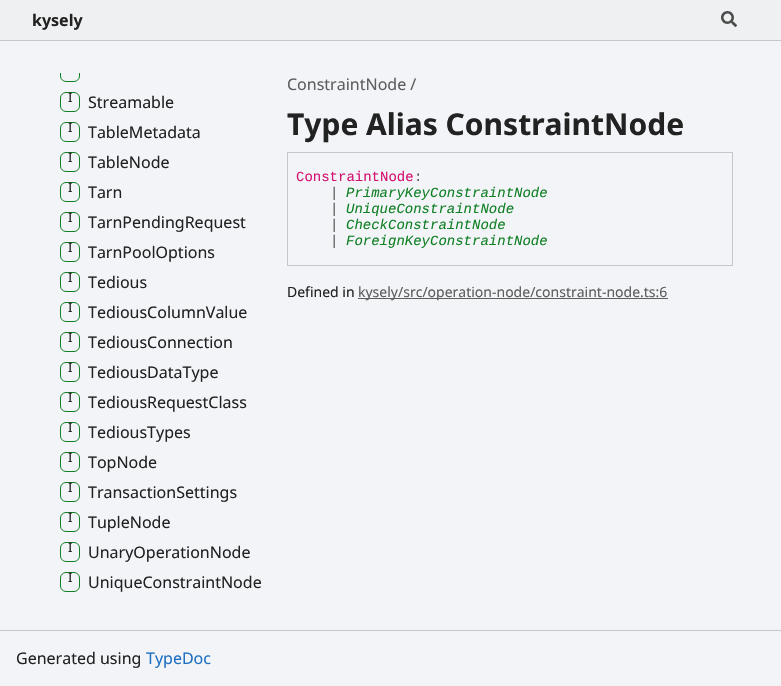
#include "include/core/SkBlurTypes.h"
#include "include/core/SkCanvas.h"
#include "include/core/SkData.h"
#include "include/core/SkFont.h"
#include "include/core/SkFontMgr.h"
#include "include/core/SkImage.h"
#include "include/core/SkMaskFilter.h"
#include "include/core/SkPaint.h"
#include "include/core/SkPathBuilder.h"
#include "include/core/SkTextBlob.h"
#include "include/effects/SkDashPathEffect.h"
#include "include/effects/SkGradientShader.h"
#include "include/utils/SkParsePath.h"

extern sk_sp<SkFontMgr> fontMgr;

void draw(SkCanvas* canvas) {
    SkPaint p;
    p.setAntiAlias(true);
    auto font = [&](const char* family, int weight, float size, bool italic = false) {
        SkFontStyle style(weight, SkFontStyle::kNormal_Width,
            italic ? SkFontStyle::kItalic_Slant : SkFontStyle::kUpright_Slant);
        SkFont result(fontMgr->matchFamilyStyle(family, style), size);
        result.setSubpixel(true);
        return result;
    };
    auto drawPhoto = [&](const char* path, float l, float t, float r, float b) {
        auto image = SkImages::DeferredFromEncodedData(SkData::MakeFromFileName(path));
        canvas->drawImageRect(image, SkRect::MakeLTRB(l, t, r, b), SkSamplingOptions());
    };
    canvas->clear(0xFFF2F4F8);
    p.setColor(0xFFEFF0F1);
    canvas->drawRect(SkRect::MakeLTRB(0, 0, 781, 40), p);
    p.setColor(0xFFC5C7C9);
    canvas->drawRect(SkRect::MakeLTRB(0, 40, 781, 41), p);
    auto font1 = font("Noto Sans", 700, 16);
    p.setColor(0xFF222222);
    canvas->drawString("kysely", 32, 26, font1, p);
    drawPhoto("media/1.png", 721, 11, 737, 27);
    canvas->save();
    canvas->clipRect(SkRect::MakeLTRB(60, 73, 80, 82));
    p.setStyle(SkPaint::kStroke_Style);
    p.setStrokeWidth(1);
    p.setColor(0xFF108024);
    canvas->drawRoundRect(SkRect::MakeLTRB(60.5f, 62.5f, 79.5f, 81.5f), 5.5f, 5.5f, p);
    canvas->restore();
    canvas->drawRoundRect(SkRect::MakeLTRB(60.5f, 92.5f, 79.5f, 111.5f), 5.5f, 5.5f, p);
    auto font2 = font("Noto Sans", 400, 13);
    p.setStyle(SkPaint::kFill_Style);
    p.setColor(0xFF222222);
    canvas->drawString("I", 68, 102, font2, p);
    auto font3 = font("Noto Sans", 400, 16);
    canvas->drawString("Streamable", 88, 108, font3, p);
    p.setStyle(SkPaint::kStroke_Style);
    p.setColor(0xFF108024);
    canvas->drawRoundRect(SkRect::MakeLTRB(60.5f, 122.5f, 79.5f, 141.5f), 5.5f, 5.5f, p);
    p.setStyle(SkPaint::kFill_Style);
    p.setColor(0xFF222222);
    canvas->drawString("I", 68, 132, font2, p);
    canvas->drawString("TableMetadata", 88, 138, font3, p);
    p.setStyle(SkPaint::kStroke_Style);
    p.setColor(0xFF108024);
    canvas->drawRoundRect(SkRect::MakeLTRB(60.5f, 152.5f, 79.5f, 171.5f), 5.5f, 5.5f, p);
    p.setStyle(SkPaint::kFill_Style);
    p.setColor(0xFF222222);
    canvas->drawString("I", 68, 162, font2, p);
    canvas->drawString("TableNode", 88, 168, font3, p);
    p.setStyle(SkPaint::kStroke_Style);
    p.setColor(0xFF108024);
    canvas->drawRoundRect(SkRect::MakeLTRB(60.5f, 182.5f, 79.5f, 201.5f), 5.5f, 5.5f, p);
    p.setStyle(SkPaint::kFill_Style);
    p.setColor(0xFF222222);
    canvas->drawString("I", 68, 192, font2, p);
    canvas->drawString("Tarn", 88, 198, font3, p);
    p.setStyle(SkPaint::kStroke_Style);
    p.setColor(0xFF108024);
    canvas->drawRoundRect(SkRect::MakeLTRB(60.5f, 212.5f, 79.5f, 231.5f), 5.5f, 5.5f, p);
    p.setStyle(SkPaint::kFill_Style);
    p.setColor(0xFF222222);
    canvas->drawString("I", 68, 222, font2, p);
    canvas->drawString("TarnPendingRequest", 88, 228, font3, p);
    p.setStyle(SkPaint::kStroke_Style);
    p.setColor(0xFF108024);
    canvas->drawRoundRect(SkRect::MakeLTRB(60.5f, 242.5f, 79.5f, 261.5f), 5.5f, 5.5f, p);
    p.setStyle(SkPaint::kFill_Style);
    p.setColor(0xFF222222);
    canvas->drawString("I", 68, 252, font2, p);
    canvas->drawString("TarnPoolOptions", 88, 258, font3, p);
    p.setStyle(SkPaint::kStroke_Style);
    p.setColor(0xFF108024);
    canvas->drawRoundRect(SkRect::MakeLTRB(60.5f, 272.5f, 79.5f, 291.5f), 5.5f, 5.5f, p);
    p.setStyle(SkPaint::kFill_Style);
    p.setColor(0xFF222222);
    canvas->drawString("I", 68, 282, font2, p);
    canvas->drawString("Tedious", 88, 288, font3, p);
    p.setStyle(SkPaint::kStroke_Style);
    p.setColor(0xFF108024);
    canvas->drawRoundRect(SkRect::MakeLTRB(60.5f, 302.5f, 79.5f, 321.5f), 5.5f, 5.5f, p);
    p.setStyle(SkPaint::kFill_Style);
    p.setColor(0xFF222222);
    canvas->drawString("I", 68, 312, font2, p);
    canvas->drawString("TediousColumnValue", 88, 318, font3, p);
    p.setStyle(SkPaint::kStroke_Style);
    p.setColor(0xFF108024);
    canvas->drawRoundRect(SkRect::MakeLTRB(60.5f, 332.5f, 79.5f, 351.5f), 5.5f, 5.5f, p);
    p.setStyle(SkPaint::kFill_Style);
    p.setColor(0xFF222222);
    canvas->drawString("I", 68, 342, font2, p);
    canvas->drawString("TediousConnection", 88, 348, font3, p);
    p.setStyle(SkPaint::kStroke_Style);
    p.setColor(0xFF108024);
    canvas->drawRoundRect(SkRect::MakeLTRB(60.5f, 362.5f, 79.5f, 381.5f), 5.5f, 5.5f, p);
    p.setStyle(SkPaint::kFill_Style);
    p.setColor(0xFF222222);
    canvas->drawString("I", 68, 372, font2, p);
    canvas->drawString("TediousDataType", 88, 378, font3, p);
    p.setStyle(SkPaint::kStroke_Style);
    p.setColor(0xFF108024);
    canvas->drawRoundRect(SkRect::MakeLTRB(60.5f, 392.5f, 79.5f, 411.5f), 5.5f, 5.5f, p);
    p.setStyle(SkPaint::kFill_Style);
    p.setColor(0xFF222222);
    canvas->drawString("I", 68, 402, font2, p);
    canvas->drawString("TediousRequestClass", 88, 408, font3, p);
    p.setStyle(SkPaint::kStroke_Style);
    p.setColor(0xFF108024);
    canvas->drawRoundRect(SkRect::MakeLTRB(60.5f, 422.5f, 79.5f, 441.5f), 5.5f, 5.5f, p);
    p.setStyle(SkPaint::kFill_Style);
    p.setColor(0xFF222222);
    canvas->drawString("I", 68, 432, font2, p);
    canvas->drawString("TediousTypes", 88, 438, font3, p);
    p.setStyle(SkPaint::kStroke_Style);
    p.setColor(0xFF108024);
    canvas->drawRoundRect(SkRect::MakeLTRB(60.5f, 452.5f, 79.5f, 471.5f), 5.5f, 5.5f, p);
    p.setStyle(SkPaint::kFill_Style);
    p.setColor(0xFF222222);
    canvas->drawString("I", 68, 462, font2, p);
    canvas->drawString("TopNode", 88, 468, font3, p);
    p.setStyle(SkPaint::kStroke_Style);
    p.setColor(0xFF108024);
    canvas->drawRoundRect(SkRect::MakeLTRB(60.5f, 482.5f, 79.5f, 501.5f), 5.5f, 5.5f, p);
    p.setStyle(SkPaint::kFill_Style);
    p.setColor(0xFF222222);
    canvas->drawString("I", 68, 492, font2, p);
    canvas->drawString("TransactionSettings", 88, 498, font3, p);
    p.setStyle(SkPaint::kStroke_Style);
    p.setColor(0xFF108024);
    canvas->drawRoundRect(SkRect::MakeLTRB(60.5f, 512.5f, 79.5f, 531.5f), 5.5f, 5.5f, p);
    p.setStyle(SkPaint::kFill_Style);
    p.setColor(0xFF222222);
    canvas->drawString("I", 68, 522, font2, p);
    canvas->drawString("TupleNode", 88, 528, font3, p);
    p.setStyle(SkPaint::kStroke_Style);
    p.setColor(0xFF108024);
    canvas->drawRoundRect(SkRect::MakeLTRB(60.5f, 542.5f, 79.5f, 561.5f), 5.5f, 5.5f, p);
    p.setStyle(SkPaint::kFill_Style);
    p.setColor(0xFF222222);
    canvas->drawString("I", 68, 552, font2, p);
    canvas->drawString("UnaryOperationNode", 88, 558, font3, p);
    p.setStyle(SkPaint::kStroke_Style);
    p.setColor(0xFF108024);
    canvas->drawRoundRect(SkRect::MakeLTRB(60.5f, 572.5f, 79.5f, 591.5f), 5.5f, 5.5f, p);
    p.setStyle(SkPaint::kFill_Style);
    p.setColor(0xFF222222);
    canvas->drawString("I", 68, 582, font2, p);
    canvas->drawString("UniqueConstraintNode", 88, 588, font3, p);
    p.setColor(0xFF5E5E5E);
    canvas->drawString("ConstraintNode /", 287, 90, font3, p);
    auto font4 = font("Noto Sans", 700, 30);
    p.setColor(0xFF222222);
    canvas->drawString("Type Alias ConstraintNode", 287, 135, font4, p);
    p.setStyle(SkPaint::kStroke_Style);
    p.setColor(0xFFC5C7C9);
    canvas->drawRect(SkRect::MakeLTRB(287.5f, 152.5f, 732.5f, 265.5f), p);
    auto font5 = font("Liberation Mono", 400, 14);
    p.setStyle(SkPaint::kFill_Style);
    p.setColor(0xFFD51270);
    canvas->drawString("ConstraintNode", 296, 181, font5, p);
    p.setColor(0xFF5E5E5E);
    canvas->drawString(":", 414, 181, font5, p);
    canvas->drawString("|", 330, 197, font5, p);
    auto font6 = font("Liberation Mono", 400, 14, true);
    p.setColor(0xFF108024);
    canvas->drawString("PrimaryKeyConstraintNode", 346, 197, font6, p);
    p.setColor(0xFF5E5E5E);
    canvas->drawString("|", 330, 213, font5, p);
    p.setColor(0xFF108024);
    canvas->drawString("UniqueConstraintNode", 346, 213, font6, p);
    p.setColor(0xFF5E5E5E);
    canvas->drawString("|", 330, 229, font5, p);
    p.setColor(0xFF108024);
    canvas->drawString("CheckConstraintNode", 346, 229, font6, p);
    p.setColor(0xFF5E5E5E);
    canvas->drawString("|", 330, 245, font5, p);
    p.setColor(0xFF108024);
    canvas->drawString("ForeignKeyConstraintNode", 346, 245, font6, p);
    auto font7 = font("Noto Sans", 400, 14);
    p.setColor(0xFF222222);
    canvas->drawString("Defined in", 287, 297, font7, p);
    p.setColor(0xFF5E5E5E);
    canvas->drawRect(SkRect::MakeLTRB(358, 298, 668, 299), p);
    canvas->drawString("kysely/src/operation-node/constraint-node.ts:6", 358, 297, font7, p);
    p.setColor(0xFFC5C7C9);
    canvas->drawRect(SkRect::MakeLTRB(0, 630, 781, 631), p);
    p.setColor(0xFF222222);
    canvas->drawString("Generated using", 16, 664, font3, p);
    p.setColor(0xFF1F70C2);
    canvas->drawString("TypeDoc", 146, 664, font3, p);
}
